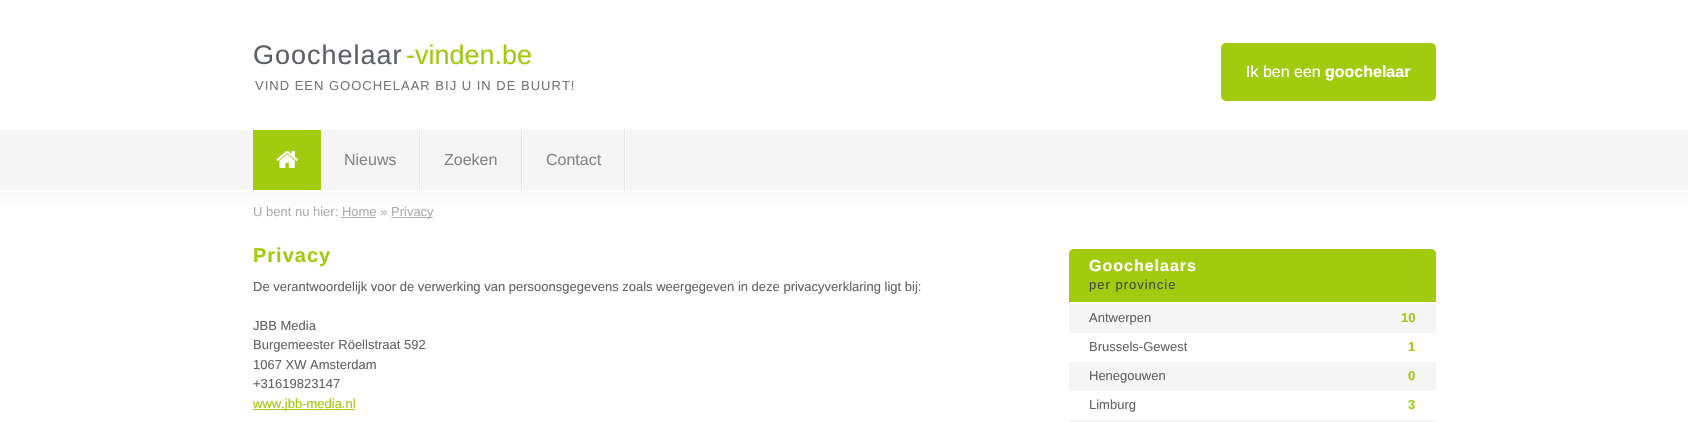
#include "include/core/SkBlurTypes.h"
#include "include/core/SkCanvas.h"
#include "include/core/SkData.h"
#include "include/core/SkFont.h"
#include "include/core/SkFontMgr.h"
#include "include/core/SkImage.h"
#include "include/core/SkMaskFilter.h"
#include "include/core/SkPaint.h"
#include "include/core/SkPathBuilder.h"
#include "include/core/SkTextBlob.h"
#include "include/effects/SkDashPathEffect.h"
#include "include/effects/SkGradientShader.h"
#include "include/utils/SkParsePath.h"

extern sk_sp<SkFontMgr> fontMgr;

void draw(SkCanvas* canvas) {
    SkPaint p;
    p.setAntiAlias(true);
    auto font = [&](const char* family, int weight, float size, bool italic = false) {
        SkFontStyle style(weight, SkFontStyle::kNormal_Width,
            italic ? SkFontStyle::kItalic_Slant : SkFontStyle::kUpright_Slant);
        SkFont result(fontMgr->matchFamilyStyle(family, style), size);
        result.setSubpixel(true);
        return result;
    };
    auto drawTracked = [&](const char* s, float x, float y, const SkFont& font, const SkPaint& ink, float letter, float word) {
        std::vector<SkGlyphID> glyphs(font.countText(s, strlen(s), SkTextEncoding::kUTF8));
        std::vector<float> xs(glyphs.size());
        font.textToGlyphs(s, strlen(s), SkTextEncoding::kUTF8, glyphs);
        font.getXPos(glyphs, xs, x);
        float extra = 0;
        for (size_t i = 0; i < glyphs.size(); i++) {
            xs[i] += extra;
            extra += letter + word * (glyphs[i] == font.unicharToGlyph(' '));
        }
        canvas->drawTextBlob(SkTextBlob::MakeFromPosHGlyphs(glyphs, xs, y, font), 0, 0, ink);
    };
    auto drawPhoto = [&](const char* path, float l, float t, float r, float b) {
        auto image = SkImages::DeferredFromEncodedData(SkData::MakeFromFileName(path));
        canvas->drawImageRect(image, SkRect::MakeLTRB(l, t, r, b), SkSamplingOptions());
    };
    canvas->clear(0xFFFFFFFF);
    auto font1 = font("Liberation Sans", 400, 27);
    p.setColor(0xFF5C5F64);
    drawTracked("Goochelaar", 253, 64, font1, p, 1, 0);
    p.setColor(0xFFA1CB0F);
    canvas->drawString("-vinden.be", 406, 64, font1, p);
    auto font2 = font("Liberation Sans", 400, 13);
    p.setColor(0xFF777777);
    drawTracked("VIND EEN GOOCHELAAR BIJ U IN DE BUURT!", 255, 90, font2, p, 1, 0);
    p.setColor(0xFFA1CB0F);
    canvas->drawRoundRect(SkRect::MakeLTRB(1221, 43, 1436, 101), 5, 5, p);
    auto font3 = font("Liberation Sans", 400, 16);
    p.setColor(0xFFFFFFFF);
    canvas->drawString("Ik ben een", 1246, 77, font3, p);
    auto font4 = font("Liberation Sans", 700, 16);
    canvas->drawString("goochelaar", 1325, 77, font4, p);
    {
        const struct { float l, t, r, b; SkColor color; } items[] = {
            {0, 130, 1688, 190, 0xFFF5F5F5},
            {625, 130, 626, 190, 0xFFFFFFFF},
            {253, 130, 321, 190, 0xFFA1CB0F},
        };
        for (auto [l, t, r, b, color] : items) {
            p.setColor(color);
            canvas->drawRect(SkRect::MakeLTRB(l, t, r, b), p);
        }
    }
    drawPhoto("media/1.png", 276, 150, 298, 168);
    p.setColor(0xFFE4E4E4);
    canvas->drawRect(SkRect::MakeLTRB(419, 130, 420, 190), p);
    p.setColor(0xFF858585);
    canvas->drawString("Nieuws", 344, 165, font3, p);
    p.setColor(0xFFE4E4E4);
    canvas->drawRect(SkRect::MakeLTRB(521, 130, 522, 190), p);
    p.setColor(0xFFFFFFFF);
    canvas->drawRect(SkRect::MakeLTRB(420, 130, 421, 190), p);
    p.setColor(0xFF858585);
    canvas->drawString("Zoeken", 444, 165, font3, p);
    p.setColor(0xFFE4E4E4);
    canvas->drawRect(SkRect::MakeLTRB(624, 130, 625, 190), p);
    p.setColor(0xFFFFFFFF);
    canvas->drawRect(SkRect::MakeLTRB(522, 130, 523, 190), p);
    p.setColor(0xFF858585);
    canvas->drawString("Contact", 546, 165, font3, p);
    {
        const SkColor colors[] = {0xFFF9F9F9, 0xFFFFFFFF};
        const float stops[] = {0, 0.61f};
        const SkPoint ends[] = {{844, 192}, {844, 233}};
        p.setShader(SkGradientShader::MakeLinear(ends, colors, stops, 2, SkTileMode::kClamp));
        p.setAlpha(255);
    }
    canvas->drawRect(SkRect::MakeLTRB(0, 192, 1688, 207), p);
    p.setShader(nullptr);
    p.setColor(0xFFAFAFAF);
    canvas->drawString("U bent nu hier: Home »", 253, 216, font2, p);
    canvas->drawRect(SkRect::MakeLTRB(391, 217, 433, 218), p);
    canvas->drawString("Privacy", 391, 216, font2, p);
    canvas->drawRect(SkRect::MakeLTRB(341, 217, 376, 218), p);
    auto font5 = font("Liberation Sans", 700, 20);
    p.setColor(0xFFA1CB0F);
    drawTracked("Privacy", 253, 262, font5, p, 1, 0);
    p.setColor(0xFF636363);
    {
        const struct { const char* s; float x, y; } items[] = {
            {"De verantwoordelijk voor de verwerking van persoonsgegevens zoals weergegeven in deze privacyverklaring ligt bij:", 253, 291},
            {"JBB Media", 253, 330},
            {"Burgemeester Röellstraat 592", 253, 349},
            {"1067 XW Amsterdam", 253, 369},
            {"+31619823147", 253, 388},
        };
        for (auto [s, x, y] : items) {
            canvas->drawString(s, x, y, font2, p);
        }
    }
    p.setColor(0xFFA1CB0F);
    canvas->drawRect(SkRect::MakeLTRB(253, 409, 355, 410), p);
    canvas->drawString("www.jbb-media.nl", 253, 408, font2, p);
    canvas->drawPath(SkPathBuilder().moveTo(1074, 249).lineTo(1431, 249).cubicTo(1434, 249, 1436, 251, 1436, 254).lineTo(1436, 304).lineTo(1069, 304).lineTo(1069, 254).cubicTo(1069, 251, 1071, 249, 1074, 249).close().detach(), p);
    p.setColor(0xFFFFFFFF);
    canvas->drawRect(SkRect::MakeLTRB(1069, 302, 1436, 304), p);
    drawTracked("Goochelaars", 1089, 271, font4, p, 1, 0);
    p.setColor(0xFF464646);
    drawTracked("per provincie", 1089, 289, font2, p, 1, 0);
    p.setColor(0xFFF5F5F5);
    canvas->drawRect(SkRect::MakeLTRB(1069, 304, 1436, 333), p);
    p.setColor(0xFF636363);
    canvas->drawString("Antwerpen", 1089, 322, font2, p);
    auto font6 = font("Liberation Sans", 700, 13);
    p.setColor(0xFFA1CB0F);
    canvas->drawString("10", 1401, 322, font6, p);
    p.setColor(0xFF636363);
    canvas->drawString("Brussels-Gewest", 1089, 351, font2, p);
    p.setColor(0xFFA1CB0F);
    canvas->drawString("1", 1408, 351, font6, p);
    p.setColor(0xFFF5F5F5);
    canvas->drawRect(SkRect::MakeLTRB(1069, 362, 1436, 391), p);
    p.setColor(0xFF636363);
    canvas->drawString("Henegouwen", 1089, 380, font2, p);
    p.setColor(0xFFA1CB0F);
    canvas->drawString("0", 1408, 380, font6, p);
    p.setColor(0xFF636363);
    canvas->drawString("Limburg", 1089, 409, font2, p);
    p.setColor(0xFFA1CB0F);
    canvas->drawString("3", 1408, 409, font6, p);
    p.setColor(0xFFF5F5F5);
    canvas->drawRect(SkRect::MakeLTRB(1069, 420, 1436, 422), p);
}
